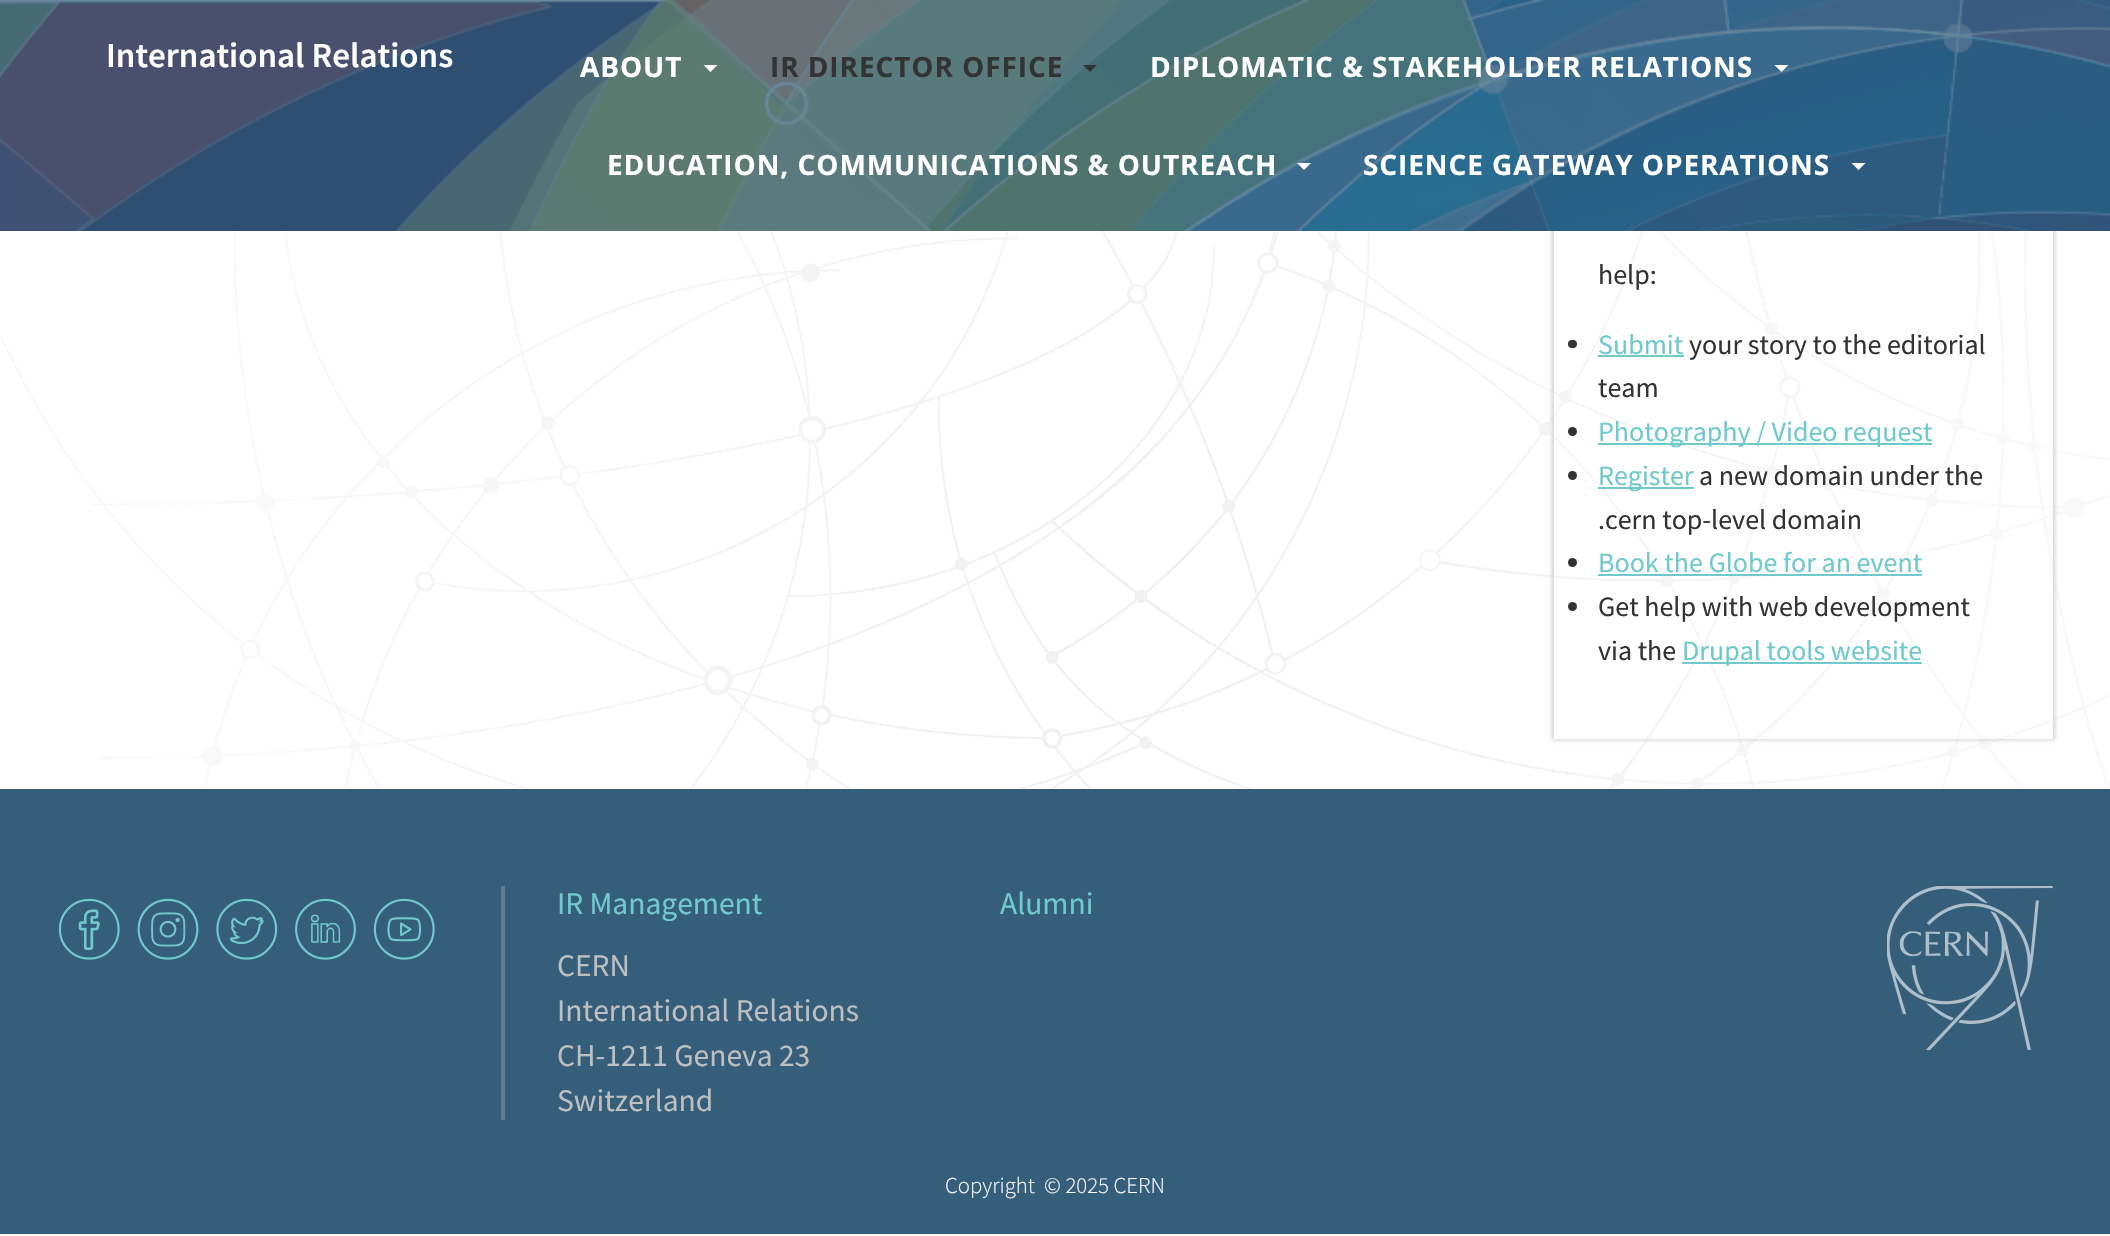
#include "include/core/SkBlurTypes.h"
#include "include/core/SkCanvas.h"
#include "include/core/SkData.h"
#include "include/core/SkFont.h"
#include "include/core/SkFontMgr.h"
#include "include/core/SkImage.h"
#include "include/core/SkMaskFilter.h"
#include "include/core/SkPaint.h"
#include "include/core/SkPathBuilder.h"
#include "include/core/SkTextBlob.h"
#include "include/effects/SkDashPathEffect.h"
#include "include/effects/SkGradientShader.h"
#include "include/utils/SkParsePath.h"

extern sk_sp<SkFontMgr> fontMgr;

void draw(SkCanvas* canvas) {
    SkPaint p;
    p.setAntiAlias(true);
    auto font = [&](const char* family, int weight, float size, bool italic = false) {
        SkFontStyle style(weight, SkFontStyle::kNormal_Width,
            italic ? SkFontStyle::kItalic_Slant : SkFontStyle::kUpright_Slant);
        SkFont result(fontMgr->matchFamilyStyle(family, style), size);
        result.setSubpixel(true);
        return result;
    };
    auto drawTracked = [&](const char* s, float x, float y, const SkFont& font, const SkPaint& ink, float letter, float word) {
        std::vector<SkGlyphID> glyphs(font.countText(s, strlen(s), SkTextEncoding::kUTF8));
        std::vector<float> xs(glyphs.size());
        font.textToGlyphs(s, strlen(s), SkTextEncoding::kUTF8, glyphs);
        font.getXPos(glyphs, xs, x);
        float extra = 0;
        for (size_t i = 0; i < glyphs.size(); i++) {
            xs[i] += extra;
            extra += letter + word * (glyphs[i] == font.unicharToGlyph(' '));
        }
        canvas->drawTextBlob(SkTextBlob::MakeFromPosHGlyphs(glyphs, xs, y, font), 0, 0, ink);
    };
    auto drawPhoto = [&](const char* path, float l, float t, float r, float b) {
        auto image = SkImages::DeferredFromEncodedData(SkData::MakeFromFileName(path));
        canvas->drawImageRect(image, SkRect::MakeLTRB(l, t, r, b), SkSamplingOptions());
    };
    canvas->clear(0xFFFFFFFF);
    drawPhoto("media/2.png", 1, 231, 2110, 789);
    canvas->save();
    canvas->clipPath(SkPathBuilder(SkPathFillType::kEvenOdd).moveTo(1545, 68).lineTo(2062, 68).lineTo(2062, 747).lineTo(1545, 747).close().moveTo(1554, 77).lineTo(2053, 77).lineTo(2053, 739).lineTo(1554, 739).close().detach(), true);
    p.setColor(0xFFD3D3D3);
    p.setMaskFilter(SkMaskFilter::MakeBlur(kNormal_SkBlurStyle, 2));
    canvas->drawRect(SkRect::MakeLTRB(1552, 75, 2055, 740), p);
    p.setMaskFilter(nullptr);
    canvas->restore();
    p.setColor(0xFF345E7A);
    canvas->drawRect(SkRect::MakeLTRB(0, 0, 2110, 231), p);
    drawPhoto("media/1.png", 0, 0, 2110, 231);
    auto font1 = font("Source Sans Pro", 600, 35);
    p.setColor(0xFFFFFFFF);
    canvas->drawString("International Relations", 106, 67, font1, p);
    auto font2 = font("Open Sans", 700, 28);
    drawTracked("ABOUT", 580, 77, font2, p, 0.9f, 0);
    p.setColor(0xFFFFFFFE);
    canvas->drawPath(SkPathBuilder().moveTo(703.5f, 65).lineTo(717.5f, 65).lineTo(710.5f, 72).close().detach(), p);
    p.setColor(0xFF333333);
    drawTracked("IR DIRECTOR OFFICE", 770, 77, font2, p, 0.9f, 0);
    canvas->drawPath(SkPathBuilder().moveTo(1083, 65).lineTo(1097, 65).lineTo(1090, 72).close().detach(), p);
    p.setColor(0xFFFFFFFF);
    drawTracked("DIPLOMATIC & STAKEHOLDER RELATIONS", 1150, 77, font2, p, 0.9f, 0);
    p.setColor(0xFFFFFFFE);
    canvas->drawPath(SkPathBuilder().moveTo(1774.5f, 65).lineTo(1788.5f, 65).lineTo(1781.5f, 72).close().detach(), p);
    p.setColor(0xFFFFFFFF);
    drawTracked("EDUCATION, COMMUNICATIONS & OUTREACH", 607, 175, font2, p, 0.9f, 0);
    p.setColor(0xFFFFFFFE);
    canvas->drawPath(SkPathBuilder().moveTo(1297, 163).lineTo(1311, 163).lineTo(1304, 170).close().detach(), p);
    p.setColor(0xFFFFFFFF);
    drawTracked("SCIENCE GATEWAY OPERATIONS", 1363, 175, font2, p, 0.9f, 0);
    p.setColor(0xFFFFFFFE);
    canvas->drawPath(SkPathBuilder().moveTo(1851.5f, 163).lineTo(1865.5f, 163).lineTo(1858.5f, 170).close().detach(), p);
    auto font3 = font("Source Sans Pro", 400, 28);
    p.setColor(0xFF333333);
    canvas->drawString("help:", 1598, 284, font3, p);
    canvas->drawRoundRect(SkRect::MakeLTRB(1568, 340, 1577, 348), 4, 4, p);
    p.setColor(0xFF70CACC);
    canvas->drawString("Submit", 1598, 354, font3, p);
    canvas->drawRect(SkRect::MakeLTRB(1598, 355, 1684, 357), p);
    p.setColor(0xFF333333);
    canvas->drawString("your story to the editorial", 1689, 354, font3, p);
    canvas->drawString("team", 1598, 397, font3, p);
    canvas->drawCircle(1572.5f, 431.5f, 4.5f, p);
    p.setColor(0xFF70CACC);
    canvas->drawRect(SkRect::MakeLTRB(1598, 443, 1932, 445), p);
    canvas->drawString("Photography / Video request", 1598, 441, font3, p);
    p.setColor(0xFF333333);
    canvas->drawCircle(1572.5f, 475.5f, 4.5f, p);
    p.setColor(0xFF70CACC);
    canvas->drawRect(SkRect::MakeLTRB(1598, 487, 1694, 489), p);
    canvas->drawString("Register", 1598, 485, font3, p);
    p.setColor(0xFF333333);
    canvas->drawString("a new domain under the", 1699, 485, font3, p);
    canvas->drawString(".cern top-level domain", 1598, 529, font3, p);
    canvas->drawCircle(1572.5f, 562.5f, 4.5f, p);
    p.setColor(0xFF70CACC);
    canvas->drawString("Book the Globe for an event", 1598, 572, font3, p);
    canvas->drawRect(SkRect::MakeLTRB(1598, 574, 1922, 576), p);
    p.setColor(0xFF333333);
    canvas->drawCircle(1572.5f, 606.5f, 4.5f, p);
    canvas->drawString("Get help with web development", 1598, 616, font3, p);
    canvas->drawString("via the", 1598, 660, font3, p);
    p.setColor(0xFF70CACC);
    canvas->drawRect(SkRect::MakeLTRB(1682, 662, 1922, 664), p);
    canvas->drawString("Drupal tools website", 1682, 660, font3, p);
    p.setColor(0xFF345E7A);
    canvas->drawRect(SkRect::MakeLTRB(0, 789, 2110, 1234), p);
    drawPhoto("media/3.png", 58, 898, 120, 960);
    drawPhoto("media/4.png", 137, 898, 199, 960);
    drawPhoto("media/5.png", 216, 898, 278, 960);
    drawPhoto("media/6.png", 295, 898, 356, 960);
    drawPhoto("media/7.png", 373, 898, 435, 960);
    p.setColor(0xFF5D7E95);
    canvas->drawRect(SkRect::MakeLTRB(501, 886, 505, 1120), p);
    auto font4 = font("Source Sans Pro", 400, 31.5f);
    p.setColor(0xFF70CACC);
    canvas->drawString("IR Management", 557, 914, font4, p);
    p.setColor(0xFFBFBFBF);
    {
        const struct { const char* s; float x, y; } items[] = {
            {"CERN", 557, 976},
            {"International Relations", 557, 1021},
            {"CH-1211 Geneva 23", 557, 1066},
            {"Switzerland", 557, 1111},
        };
        for (auto [s, x, y] : items) {
            canvas->drawString(s, x, y, font4, p);
        }
    }
    p.setColor(0xFF70CACC);
    canvas->drawString("Alumni", 1000, 914, font4, p);
    drawPhoto("media/8.png", 1887, 886, 2053, 1050);
    auto font5 = font("Source Sans Pro", 300, 22.75f);
    p.setColor(0xFFF8F8F8);
    canvas->drawString("Copyright", 945, 1193, font5, p);
    canvas->drawString("© 2025 CERN", 1044, 1193, font5, p);
}
